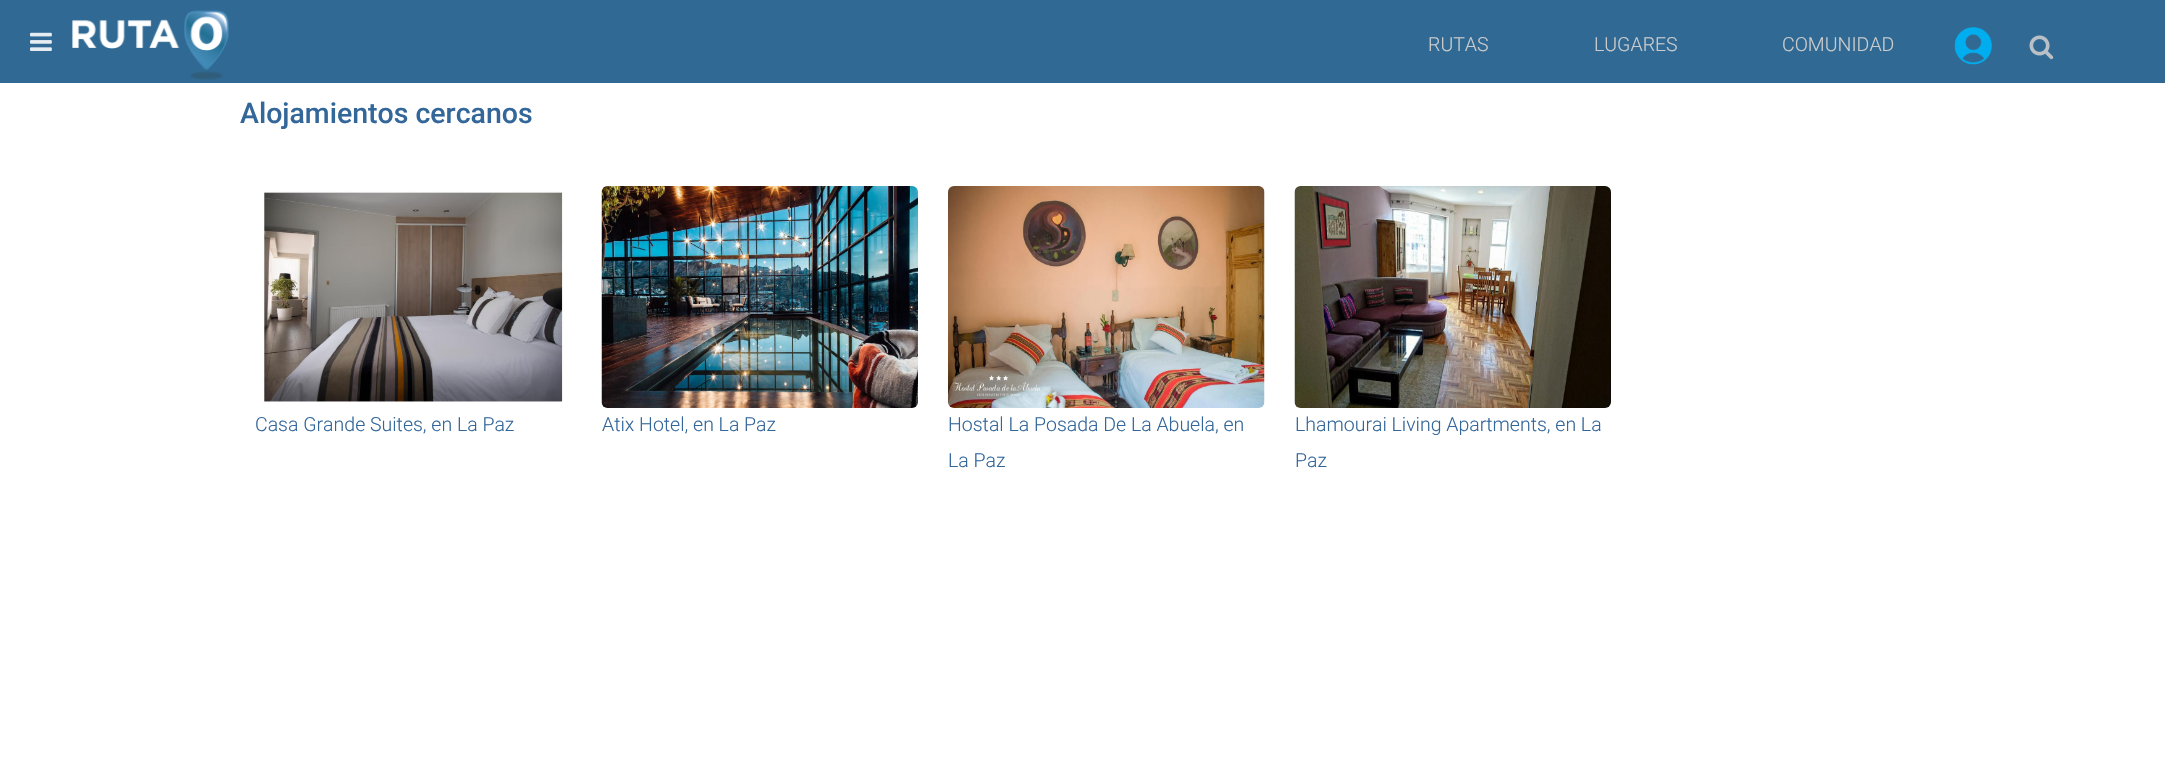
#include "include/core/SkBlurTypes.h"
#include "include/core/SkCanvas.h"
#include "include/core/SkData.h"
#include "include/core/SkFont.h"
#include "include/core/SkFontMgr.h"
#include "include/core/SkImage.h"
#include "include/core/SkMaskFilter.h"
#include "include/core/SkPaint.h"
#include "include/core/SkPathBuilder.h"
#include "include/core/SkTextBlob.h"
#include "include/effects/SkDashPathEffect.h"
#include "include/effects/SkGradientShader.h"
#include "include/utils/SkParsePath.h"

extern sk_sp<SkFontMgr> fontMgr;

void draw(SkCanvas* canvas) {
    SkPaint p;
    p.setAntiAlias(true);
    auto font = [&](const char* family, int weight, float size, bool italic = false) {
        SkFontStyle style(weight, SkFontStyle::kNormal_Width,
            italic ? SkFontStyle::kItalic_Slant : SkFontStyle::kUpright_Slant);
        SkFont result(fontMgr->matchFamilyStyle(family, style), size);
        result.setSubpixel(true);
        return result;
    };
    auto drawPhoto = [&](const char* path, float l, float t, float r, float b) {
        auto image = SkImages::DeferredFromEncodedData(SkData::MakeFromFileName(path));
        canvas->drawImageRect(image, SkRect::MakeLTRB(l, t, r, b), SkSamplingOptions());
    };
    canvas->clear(0xFFFFFFFF);
    p.setColor(0xFF306A94);
    canvas->drawRect(SkRect::MakeLTRB(0, 0, 2165, 83), p);
    drawPhoto("media/1.png", 30, 32, 52, 51);
    drawPhoto("media/2.png", 72, 10, 229, 80);
    auto font1 = font("Roboto", 300, 19.5f);
    p.setColor(0xFFCCCCCC);
    {
        const struct { const char* s; float x, y; } items[] = {
            {"RUTAS", 1428, 51},
            {"LUGARES", 1594, 51},
            {"COMUNIDAD", 1782, 51},
        };
        for (auto [s, x, y] : items) {
            canvas->drawString(s, x, y, font1, p);
        }
    }
    drawPhoto("media/3.png", 1954, 27, 1992, 65);
    drawPhoto("media/4.png", 2029, 35, 2054, 60);
    auto font2 = font("Roboto", 500, 28.5f);
    p.setColor(0xFF336699);
    canvas->drawString("Alojamientos cercanos", 240, 123, font2, p);
    drawPhoto("media/5.png", 262, 191, 564, 403);
    canvas->drawString("Casa Grande Suites, en La Paz", 255, 431, font1, p);
    drawPhoto("media/6.png", 601, 186, 918, 408);
    canvas->drawString("Atix Hotel, en La Paz", 602, 431, font1, p);
    drawPhoto("media/7.png", 948, 186, 1265, 408);
    canvas->drawString("Hostal La Posada De La Abuela, en", 948, 431, font1, p);
    canvas->drawString("La Paz", 948, 467, font1, p);
    drawPhoto("media/8.png", 1294, 186, 1611, 408);
    canvas->drawString("Lhamourai Living Apartments, en La", 1295, 431, font1, p);
    canvas->drawString("Paz", 1295, 467, font1, p);
}
